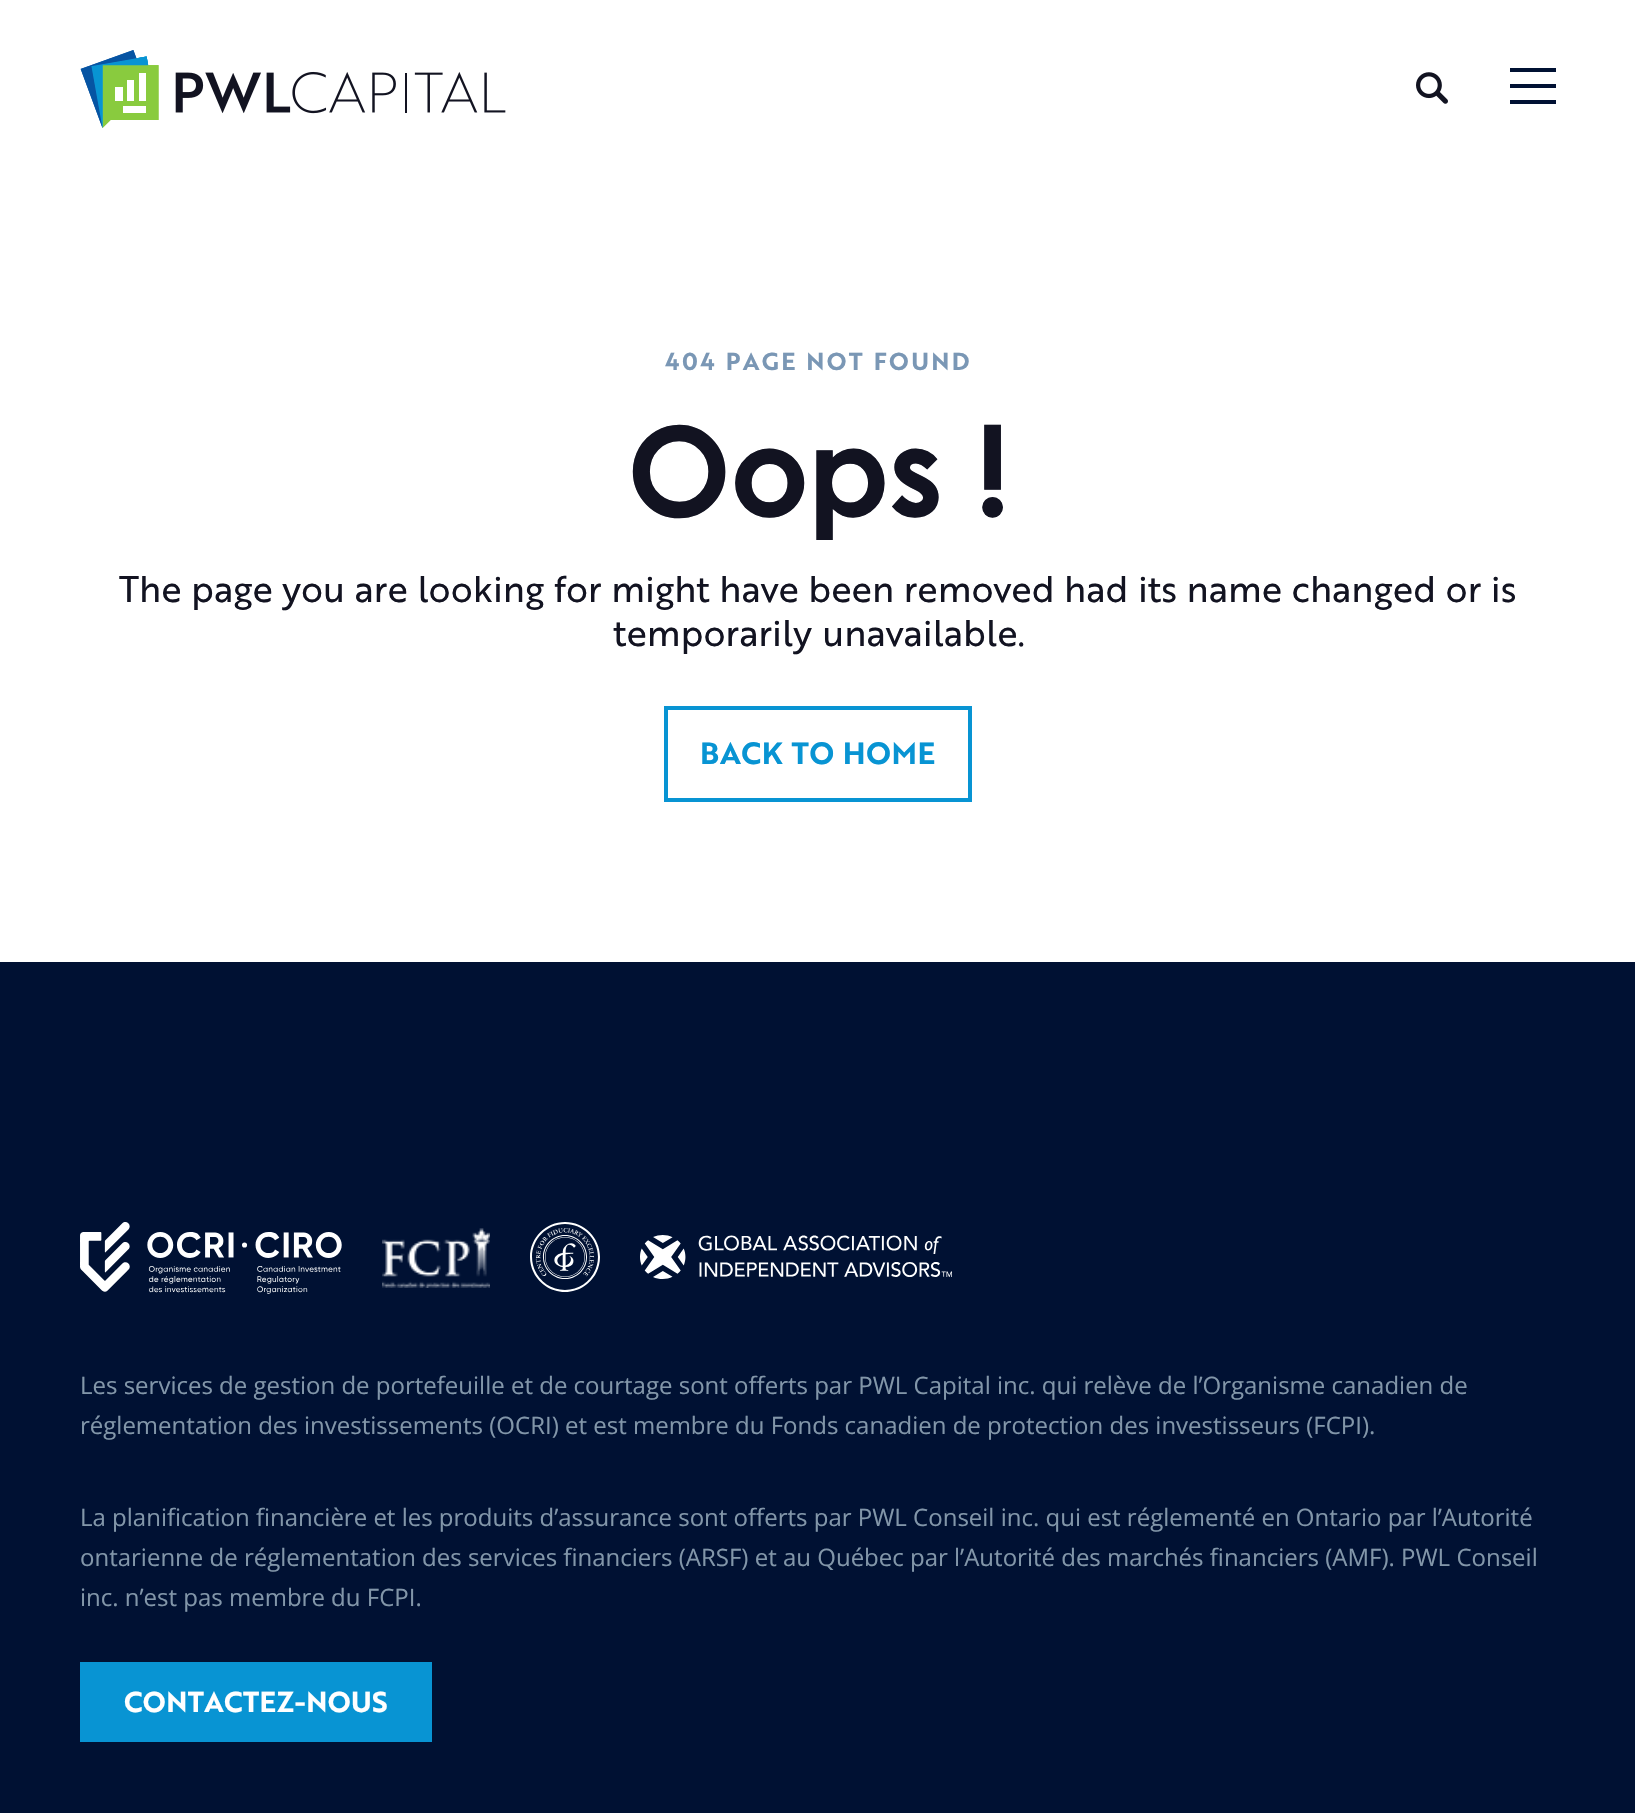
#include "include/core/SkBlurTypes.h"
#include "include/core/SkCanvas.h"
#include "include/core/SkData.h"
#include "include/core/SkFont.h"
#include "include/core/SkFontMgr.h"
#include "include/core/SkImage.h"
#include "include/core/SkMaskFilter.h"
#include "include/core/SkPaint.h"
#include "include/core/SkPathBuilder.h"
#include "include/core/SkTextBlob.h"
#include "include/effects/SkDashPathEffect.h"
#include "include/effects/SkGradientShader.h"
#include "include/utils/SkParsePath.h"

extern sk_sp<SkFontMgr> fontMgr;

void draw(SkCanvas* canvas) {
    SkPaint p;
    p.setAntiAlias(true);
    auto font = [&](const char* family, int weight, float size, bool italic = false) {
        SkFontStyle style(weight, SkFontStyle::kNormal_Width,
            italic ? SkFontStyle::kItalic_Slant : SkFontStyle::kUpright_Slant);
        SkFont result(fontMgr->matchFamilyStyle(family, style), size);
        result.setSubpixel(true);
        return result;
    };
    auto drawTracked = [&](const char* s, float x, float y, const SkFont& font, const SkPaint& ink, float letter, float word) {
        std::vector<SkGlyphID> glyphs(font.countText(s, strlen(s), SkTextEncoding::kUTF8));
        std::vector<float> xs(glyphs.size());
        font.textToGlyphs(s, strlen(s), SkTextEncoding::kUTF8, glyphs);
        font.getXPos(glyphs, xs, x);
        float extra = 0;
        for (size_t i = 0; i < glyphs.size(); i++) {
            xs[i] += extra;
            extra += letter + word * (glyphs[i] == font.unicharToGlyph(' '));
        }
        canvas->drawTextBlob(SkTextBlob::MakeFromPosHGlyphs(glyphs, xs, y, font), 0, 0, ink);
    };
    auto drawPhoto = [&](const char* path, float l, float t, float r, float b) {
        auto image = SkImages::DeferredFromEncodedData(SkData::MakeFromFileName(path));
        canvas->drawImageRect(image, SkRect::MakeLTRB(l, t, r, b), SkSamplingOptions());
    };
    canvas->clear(0xFFFFFFFF);
    drawPhoto("media/1.png", 80, 50, 159, 128);
    drawPhoto("media/2.png", 80, 50, 506, 128);
    drawPhoto("media/3.png", 1416, 72, 1448, 104);
    {
        const struct { float l, t, r, b; SkColor color; } items[] = {
            {1510, 68, 1556, 72, 0xFF001133},
            {1510, 84, 1556, 88, 0xFF001133},
            {1510, 100, 1556, 104, 0xFF001133},
        };
        for (auto [l, t, r, b, color] : items) {
            p.setColor(color);
            canvas->drawRect(SkRect::MakeLTRB(l, t, r, b), p);
        }
    }
    auto font1 = font("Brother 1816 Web", 700, 24);
    p.setColor(0xFF7A97B5);
    drawTracked("404 PAGE NOT FOUND", 665, 370, font1, p, 2.4f, 0);
    auto font2 = font("Century Gothic", 700, 124);
    p.setColor(0xFF121321);
    drawTracked("Oops !", 627, 516, font2, p, -1.25f, 0);
    auto font3 = font("Brother 1816 Web", 400, 36);
    canvas->drawString("The page you are looking for might have been removed had its name changed or is", 119, 602, font3, p);
    drawTracked("temporarily unavailable.", 613, 646, font3, p, 0, 1);
    p.setStyle(SkPaint::kStroke_Style);
    p.setStrokeWidth(4);
    p.setColor(0xFF0894D3);
    canvas->drawRect(SkRect::MakeLTRB(666, 708, 970, 800), p);
    auto font4 = font("Brother 1816 Web", 700, 30);
    p.setStyle(SkPaint::kFill_Style);
    drawTracked("BACK TO HOME", 700, 764, font4, p, 0.6f, 0);
    p.setColor(0xFF001133);
    canvas->drawRect(SkRect::MakeLTRB(0, 962, 1635, 1813), p);
    drawPhoto("media/4.png", 80, 1222, 342, 1294);
    drawPhoto("media/5.png", 382, 1228, 490, 1288);
    drawPhoto("media/6.png", 530, 1222, 600, 1292);
    drawPhoto("media/7.png", 640, 1235, 952, 1279);
    auto font5 = font("Open Sans", 400, 24);
    p.setColor(0xFF8296A9);
    {
        const struct { const char* s; float x, y; } items[] = {
            {"Les services de gestion de portefeuille et de courtage sont offerts par PWL Capital inc. qui relève de l’Organisme canadien de", 80, 1394},
            {"réglementation des investissements (OCRI) et est membre du Fonds canadien de protection des investisseurs (FCPI).", 80, 1434},
            {"La planification financière et les produits d’assurance sont offerts par PWL Conseil inc. qui est réglementé en Ontario par l’Autorité", 80, 1526},
            {"ontarienne de réglementation des services financiers (ARSF) et au Québec par l’Autorité des marchés financiers (AMF). PWL Conseil", 80, 1566},
            {"inc. n’est pas membre du FCPI.", 80, 1606},
        };
        for (auto [s, x, y] : items) {
            canvas->drawString(s, x, y, font5, p);
        }
    }
    p.setColor(0xFF0894D3);
    canvas->drawRect(SkRect::MakeLTRB(80, 1662, 432, 1742), p);
    auto font6 = font("Brother 1816 Web", 700, 28);
    p.setColor(0xFFFFFFFF);
    drawTracked("CONTACTEZ-NOUS", 124, 1712, font6, p, 0.4f, 0);
}
